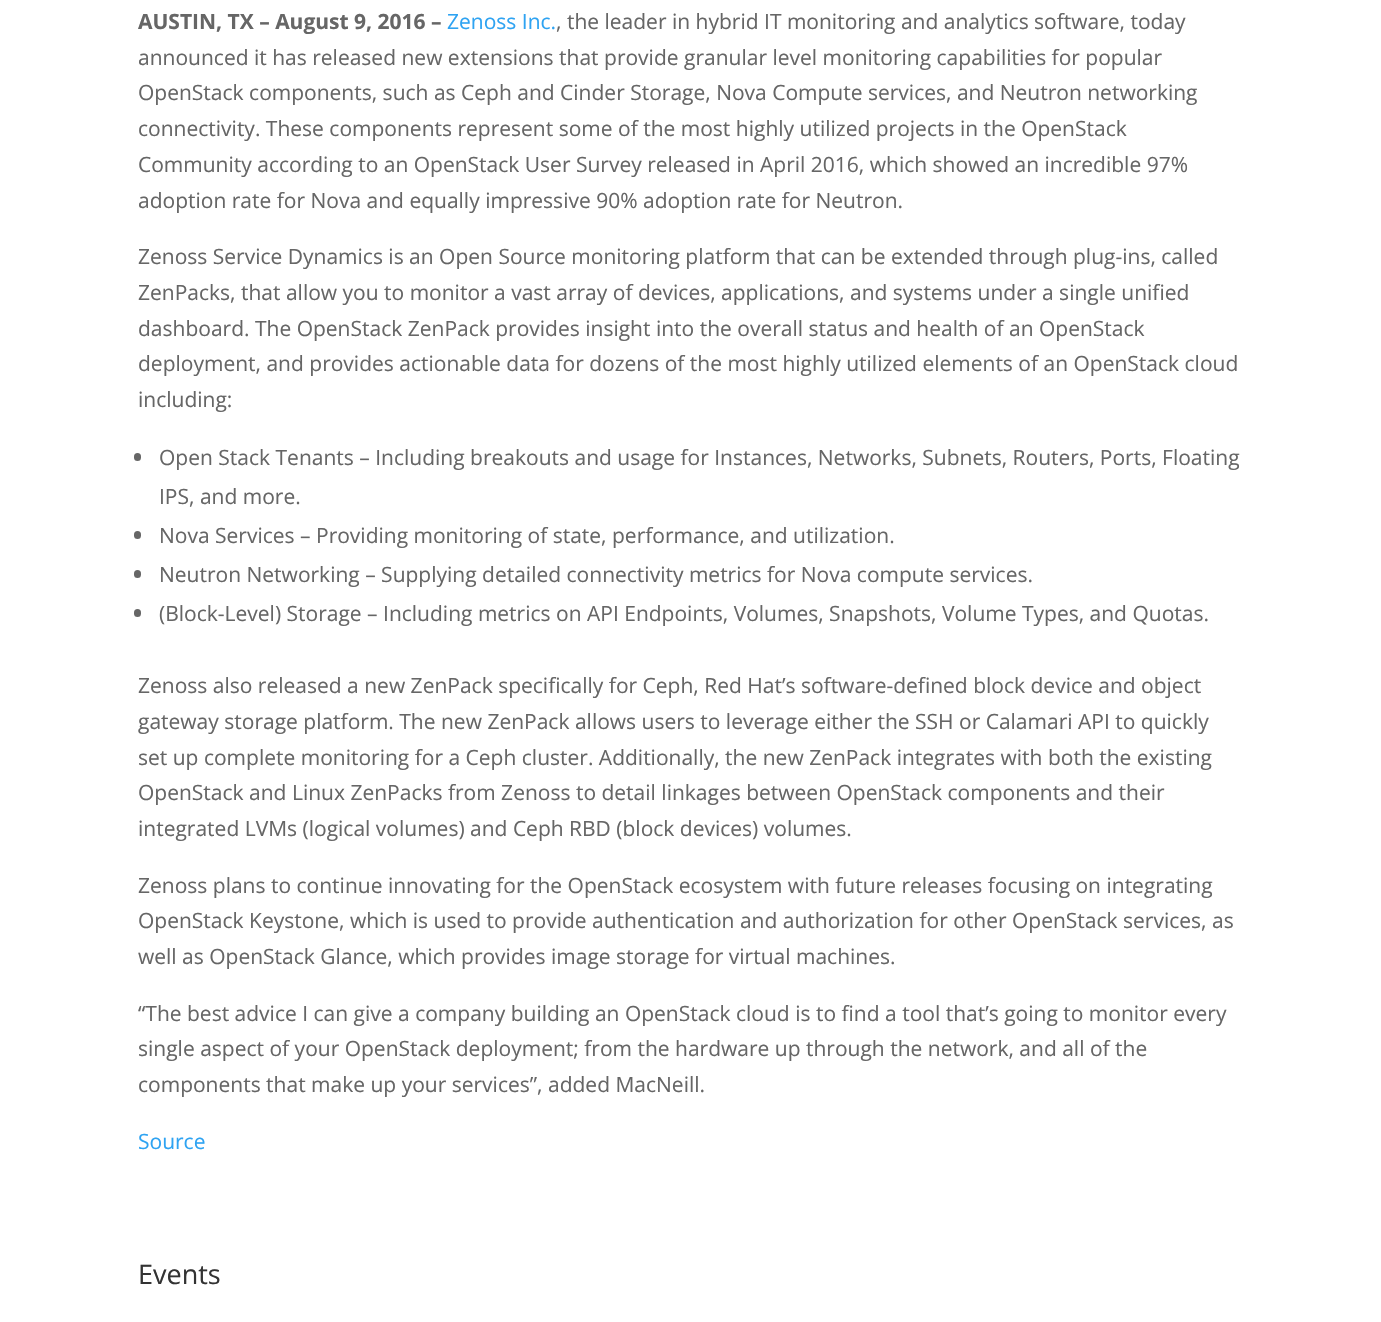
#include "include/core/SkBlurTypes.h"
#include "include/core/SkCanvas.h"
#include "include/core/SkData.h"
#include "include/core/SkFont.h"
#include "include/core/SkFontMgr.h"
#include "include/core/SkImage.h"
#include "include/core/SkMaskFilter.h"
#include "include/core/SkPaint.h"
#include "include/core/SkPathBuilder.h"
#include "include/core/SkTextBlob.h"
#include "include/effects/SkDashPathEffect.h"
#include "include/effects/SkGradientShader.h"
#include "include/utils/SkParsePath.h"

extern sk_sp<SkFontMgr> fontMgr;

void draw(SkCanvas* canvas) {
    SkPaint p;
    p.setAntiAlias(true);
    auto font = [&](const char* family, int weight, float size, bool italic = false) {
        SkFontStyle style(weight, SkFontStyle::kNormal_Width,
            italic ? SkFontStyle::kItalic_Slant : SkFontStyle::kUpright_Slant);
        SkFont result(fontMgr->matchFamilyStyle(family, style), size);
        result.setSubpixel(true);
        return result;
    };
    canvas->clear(0xFFFFFFFF);
    auto font1 = font("Open Sans", 700, 21);
    p.setColor(0xFF666666);
    canvas->drawString("AUSTIN, TX – August 9, 2016 –", 138, 29, font1, p);
    auto font2 = font("Open Sans", 400, 21);
    p.setColor(0xFF2EA3F2);
    canvas->drawString("Zenoss Inc.", 447, 29, font2, p);
    p.setColor(0xFF666666);
    {
        const struct { const char* s; float x, y; } items[] = {
            {", the leader in hybrid IT monitoring and analytics software, today", 556, 29},
            {"announced it has released new extensions that provide granular level monitoring capabilities for popular", 138, 65},
            {"OpenStack components, such as Ceph and Cinder Storage, Nova Compute services, and Neutron networking", 138, 100},
            {"connectivity. These components represent some of the most highly utilized projects in the OpenStack", 138, 136},
            {"Community according to an OpenStack User Survey released in April 2016, which showed an incredible 97%", 138, 172},
            {"adoption rate for Nova and equally impressive 90% adoption rate for Neutron.", 138, 208},
            {"Zenoss Service Dynamics is an Open Source monitoring platform that can be extended through plug-ins, called", 138, 264},
            {"ZenPacks, that allow you to monitor a vast array of devices, applications, and systems under a single unified", 138, 300},
            {"dashboard. The OpenStack ZenPack provides insight into the overall status and health of an OpenStack", 138, 336},
            {"deployment, and provides actionable data for dozens of the most highly utilized elements of an OpenStack cloud", 138, 371},
            {"including:", 138, 407},
        };
        for (auto [s, x, y] : items) {
            canvas->drawString(s, x, y, font2, p);
        }
    }
    canvas->drawRoundRect(SkRect::MakeLTRB(134, 453, 141, 461), 3.5f, 3.5f, p);
    canvas->drawString("Open Stack Tenants – Including breakouts and usage for Instances, Networks, Subnets, Routers, Ports, Floating", 159, 465, font2, p);
    canvas->drawString("IPS, and more.", 159, 504, font2, p);
    canvas->drawRoundRect(SkRect::MakeLTRB(134, 531, 141, 539), 3.5f, 3.5f, p);
    canvas->drawString("Nova Services – Providing monitoring of state, performance, and utilization.", 159, 543, font2, p);
    canvas->drawRoundRect(SkRect::MakeLTRB(134, 570, 141, 578), 3.5f, 3.5f, p);
    canvas->drawString("Neutron Networking – Supplying detailed connectivity metrics for Nova compute services.", 159, 582, font2, p);
    canvas->drawRoundRect(SkRect::MakeLTRB(134, 609, 141, 617), 3.5f, 3.5f, p);
    {
        const struct { const char* s; float x, y; } items[] = {
            {"(Block-Level) Storage – Including metrics on API Endpoints, Volumes, Snapshots, Volume Types, and Quotas.", 159, 621},
            {"Zenoss also released a new ZenPack specifically for Ceph, Red Hat’s software-defined block device and object", 138, 693},
            {"gateway storage platform. The new ZenPack allows users to leverage either the SSH or Calamari API to quickly", 138, 729},
            {"set up complete monitoring for a Ceph cluster. Additionally, the new ZenPack integrates with both the existing", 138, 765},
            {"OpenStack and Linux ZenPacks from Zenoss to detail linkages between OpenStack components and their", 138, 800},
            {"integrated LVMs (logical volumes) and Ceph RBD (block devices) volumes.", 138, 836},
            {"Zenoss plans to continue innovating for the OpenStack ecosystem with future releases focusing on integrating", 138, 893},
            {"OpenStack Keystone, which is used to provide authentication and authorization for other OpenStack services, as", 138, 928},
            {"well as OpenStack Glance, which provides image storage for virtual machines.", 138, 964},
            {"“The best advice I can give a company building an OpenStack cloud is to find a tool that’s going to monitor every", 138, 1021},
            {"single aspect of your OpenStack deployment; from the hardware up through the network, and all of the", 138, 1056},
            {"components that make up your services”, added MacNeill.", 138, 1092},
        };
        for (auto [s, x, y] : items) {
            canvas->drawString(s, x, y, font2, p);
        }
    }
    p.setColor(0xFF2EA3F2);
    canvas->drawString("Source", 138, 1149, font2, p);
    auto font3 = font("Open Sans", 400, 27);
    p.setColor(0xFF333333);
    canvas->drawString("Events", 138, 1284, font3, p);
}
